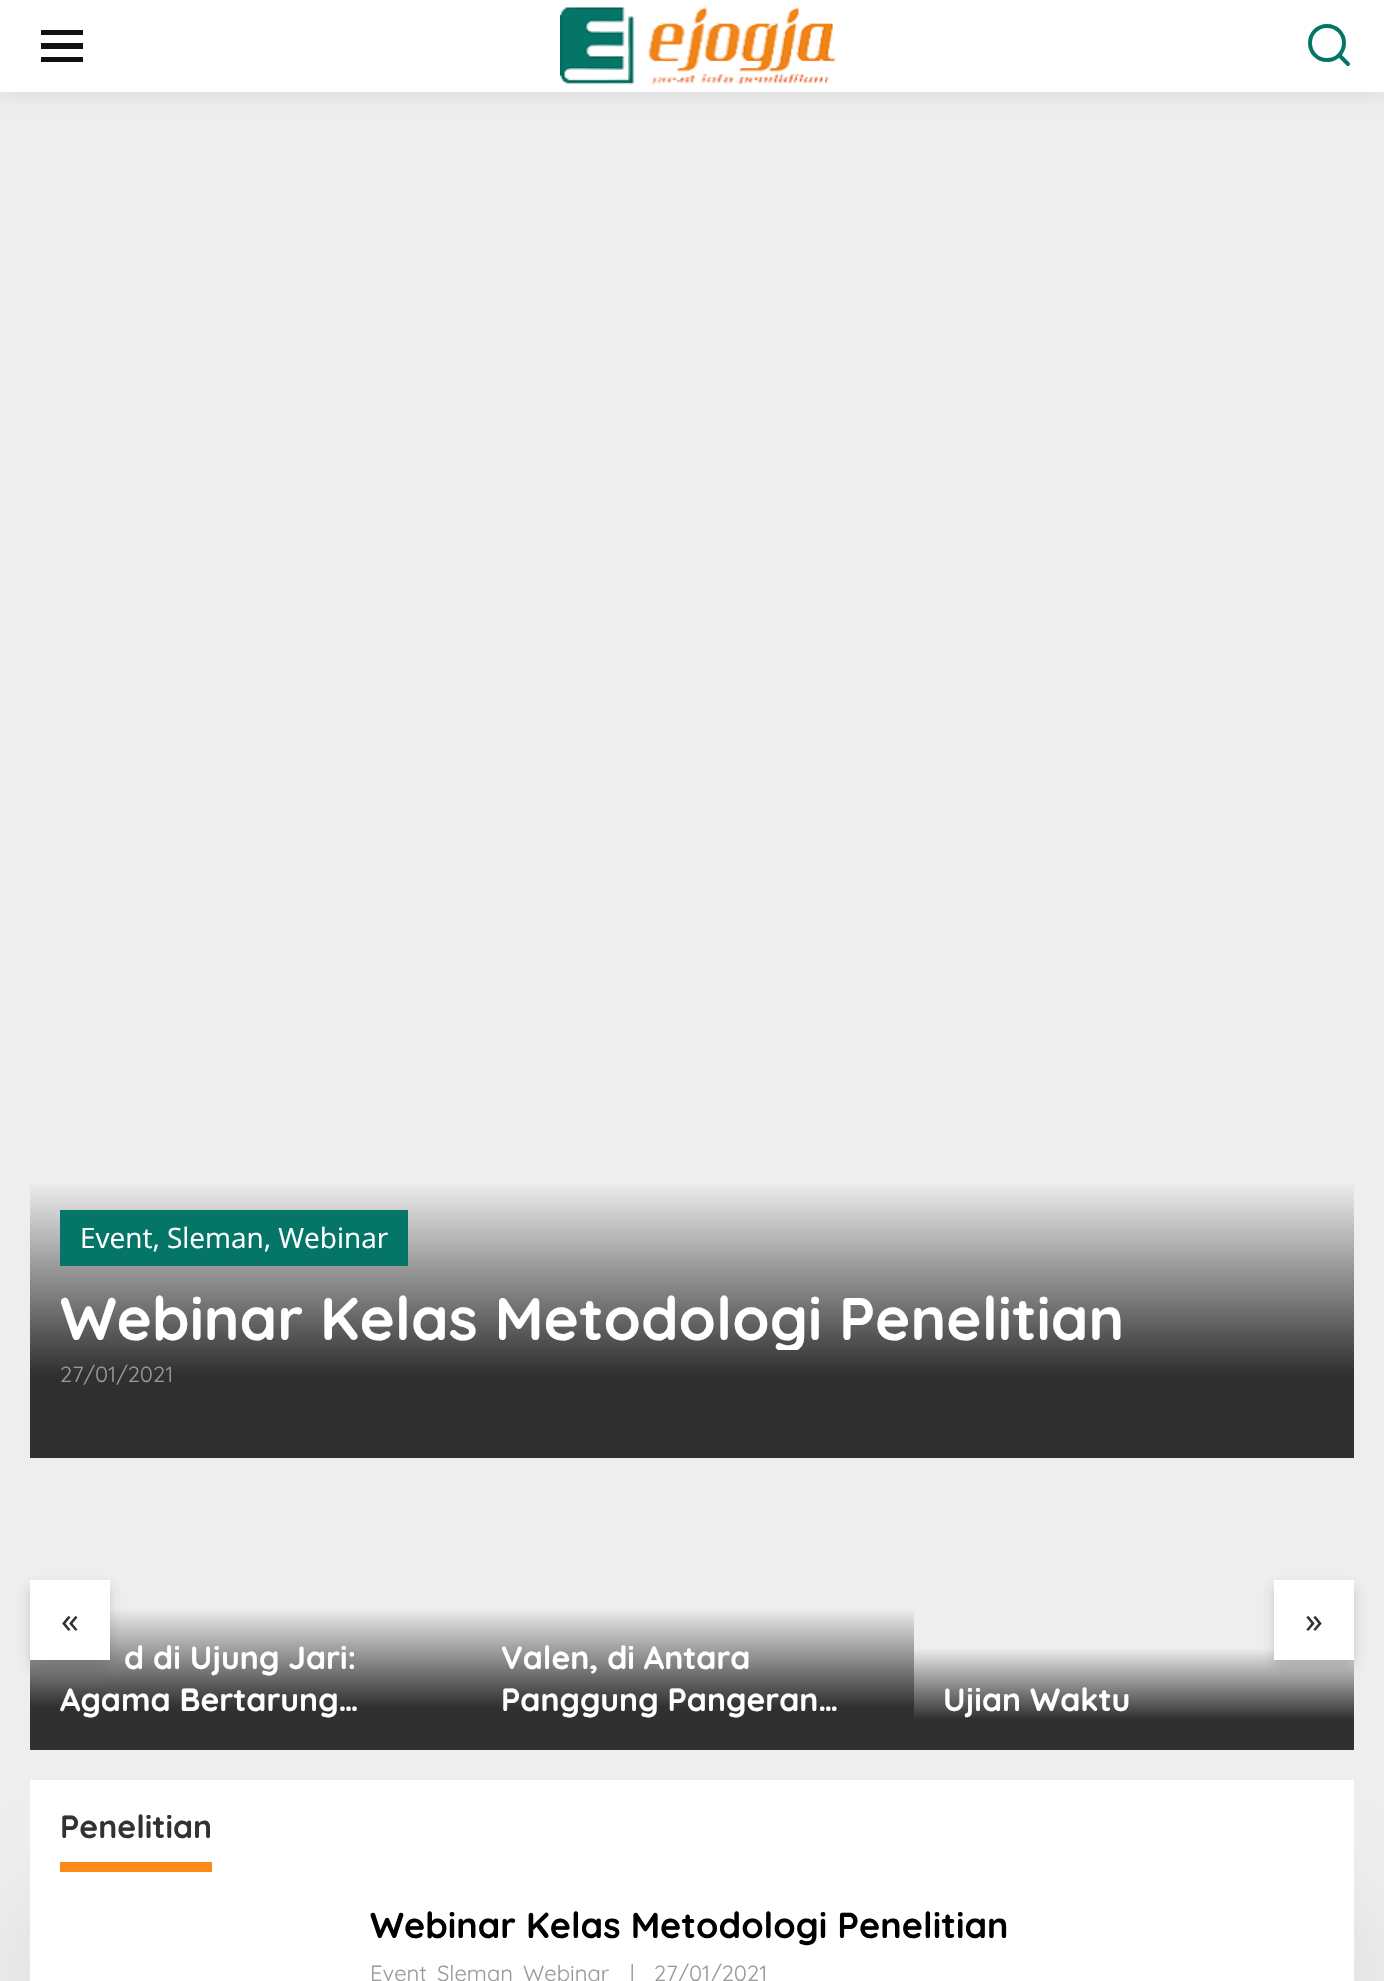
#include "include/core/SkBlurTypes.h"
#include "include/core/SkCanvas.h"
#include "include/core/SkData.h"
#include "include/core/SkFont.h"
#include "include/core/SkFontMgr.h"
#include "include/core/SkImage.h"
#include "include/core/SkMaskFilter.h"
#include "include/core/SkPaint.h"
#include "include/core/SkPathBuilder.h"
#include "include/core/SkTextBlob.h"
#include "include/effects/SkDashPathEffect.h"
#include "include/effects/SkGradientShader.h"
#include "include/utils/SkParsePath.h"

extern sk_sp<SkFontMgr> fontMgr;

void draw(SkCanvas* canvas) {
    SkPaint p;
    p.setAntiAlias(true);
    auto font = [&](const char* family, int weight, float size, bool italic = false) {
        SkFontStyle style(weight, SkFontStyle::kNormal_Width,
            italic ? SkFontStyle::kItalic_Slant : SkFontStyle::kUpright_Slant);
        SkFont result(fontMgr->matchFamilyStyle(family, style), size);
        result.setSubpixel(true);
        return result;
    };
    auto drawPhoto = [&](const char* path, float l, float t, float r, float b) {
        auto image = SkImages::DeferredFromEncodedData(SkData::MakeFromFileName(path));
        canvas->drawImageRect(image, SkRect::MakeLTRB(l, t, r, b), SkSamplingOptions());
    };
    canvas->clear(0xFFEEEEEE);
    p.setColor(0x1A000000);
    p.setMaskFilter(SkMaskFilter::MakeBlur(kNormal_SkBlurStyle, 10));
    canvas->drawRect(SkRect::MakeLTRB(0, 0, 1384, 92), p);
    p.setMaskFilter(nullptr);
    p.setColor(0xFFFFFFFF);
    canvas->drawRect(SkRect::MakeLTRB(0, 0, 1384, 92), p);
    p.setColor(0xFF111111);
    canvas->drawPath(SkPathBuilder().moveTo(41, 30).lineTo(83, 30).lineTo(83, 35).lineTo(41, 35).close().moveTo(41, 43).lineTo(83, 43).lineTo(83, 49).lineTo(41, 49).close().moveTo(41, 57).lineTo(83, 57).lineTo(83, 62).lineTo(41, 62).close().detach(), p);
    drawPhoto("media/1.png", 560, 7, 836, 85);
    p.setStyle(SkPaint::kStroke_Style);
    p.setStrokeWidth(4);
    p.setStrokeCap(SkPaint::kRound_Cap);
    p.setColor(0xFF057568);
    canvas->drawPath(SkPathBuilder().moveTo(1348, 64).lineTo(1339, 55).moveTo(1344, 43).cubicTo(1344, 52.5f, 1336.5f, 60, 1327, 60).cubicTo(1317.5f, 60, 1310, 52.5f, 1310, 43).cubicTo(1310, 33.5f, 1317.5f, 26, 1327, 26).cubicTo(1336.5f, 26, 1344, 33.5f, 1344, 43).close().detach(), p);
    p.setStyle(SkPaint::kFill_Style);
    {
        const SkColor colors[] = {0xFFEFEFEF, 0xFF303030};
        const float stops[] = {0, 0.7f};
        const SkPoint ends[] = {{692, 1180}, {692, 1458}};
        p.setShader(SkGradientShader::MakeLinear(ends, colors, stops, 2, SkTileMode::kClamp));
        p.setAlpha(255);
    }
    canvas->drawRect(SkRect::MakeLTRB(30, 1184, 1354, 1458), p);
    p.setShader(nullptr);
    p.setColor(0xFF057568);
    canvas->drawRect(SkRect::MakeLTRB(60, 1210, 408, 1266), p);
    auto font1 = font("Open Sans", 400, 28);
    p.setColor(0xFFFFFFFF);
    canvas->drawString("Event, Sleman, Webinar", 80, 1248, font1, p);
    canvas->save();
    canvas->clipRect(SkRect::MakeLTRB(60, 1286, 1324, 1350));
    auto font2 = font("Quicksand", 700, 60);
    canvas->drawString("Webinar Kelas Metodologi Penelitian", 60, 1340, font2, p);
    canvas->restore();
    auto font3 = font("Quicksand", 400, 22);
    p.setColor(0xFF999999);
    canvas->drawString("27/01/2021", 60, 1382, font3, p);
    {
        const SkColor colors[] = {0xFFEEEEEE, 0xFF303030};
        const float stops[] = {0, 0.7f};
        const SkPoint ends[] = {{250, 1608}, {250, 1750}};
        p.setShader(SkGradientShader::MakeLinear(ends, colors, stops, 2, SkTileMode::kClamp));
        p.setAlpha(255);
    }
    canvas->drawRect(SkRect::MakeLTRB(30, 1609, 472, 1750), p);
    p.setShader(nullptr);
    p.setColor(0x33333333);
    p.setMaskFilter(SkMaskFilter::MakeBlur(kNormal_SkBlurStyle, 6));
    canvas->drawRect(SkRect::MakeLTRB(30, 1586, 110, 1666), p);
    p.setMaskFilter(nullptr);
    p.setColor(0xFFFFFFFF);
    canvas->drawRect(SkRect::MakeLTRB(30, 1580, 110, 1660), p);
    auto font4 = font("Open Sans", 400, 36);
    p.setColor(0xFF323233);
    canvas->drawString("«", 61, 1633, font4, p);
    {
        const SkColor colors[] = {0xFFEEEEEE, 0xFF303030};
        const float stops[] = {0, 0.7f};
        const SkPoint ends[] = {{1133, 1648}, {1133, 1750}};
        p.setShader(SkGradientShader::MakeLinear(ends, colors, stops, 2, SkTileMode::kClamp));
        p.setAlpha(255);
    }
    canvas->drawRect(SkRect::MakeLTRB(914, 1649, 1354, 1750), p);
    p.setShader(nullptr);
    p.setColor(0x33333333);
    p.setMaskFilter(SkMaskFilter::MakeBlur(kNormal_SkBlurStyle, 6));
    canvas->drawRect(SkRect::MakeLTRB(1274, 1586, 1354, 1666), p);
    p.setMaskFilter(nullptr);
    p.setColor(0xFFFFFFFF);
    canvas->drawRect(SkRect::MakeLTRB(1274, 1580, 1354, 1660), p);
    p.setColor(0xFF323233);
    canvas->drawString("»", 1305, 1633, font4, p);
    auto font5 = font("Quicksand", 700, 32);
    p.setColor(0xFFFFFFFF);
    canvas->drawString("d di Ujung Jari:", 124, 1669, font5, p);
    canvas->drawString("Agama Bertarung…", 60, 1711, font5, p);
    {
        const SkColor colors[] = {0xFFEEEEEE, 0xFF303030};
        const float stops[] = {0, 0.7f};
        const SkPoint ends[] = {{692, 1608}, {692, 1750}};
        p.setShader(SkGradientShader::MakeLinear(ends, colors, stops, 2, SkTileMode::kClamp));
        p.setAlpha(255);
    }
    canvas->drawRect(SkRect::MakeLTRB(472, 1609, 914, 1750), p);
    p.setShader(nullptr);
    p.setColor(0xFFFFFFFF);
    {
        const struct { const char* s; float x, y; } items[] = {
            {"Valen, di Antara", 501, 1669},
            {"Panggung Pangeran…", 501, 1711},
            {"Ujian Waktu", 943, 1711},
        };
        for (auto [s, x, y] : items) {
            canvas->drawString(s, x, y, font5, p);
        }
    }
    p.setColor(0x12000000);
    p.setMaskFilter(SkMaskFilter::MakeBlur(kNormal_SkBlurStyle, 45));
    canvas->drawRect(SkRect::MakeLTRB(30, 1904, 1354, 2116), p);
    p.setMaskFilter(nullptr);
    p.setColor(0xFFFFFFFF);
    canvas->drawRect(SkRect::MakeLTRB(30, 1780, 1354, 1981), p);
    p.setColor(0xFFFE8917);
    canvas->drawRect(SkRect::MakeLTRB(60, 1862, 212, 1872), p);
    p.setColor(0xFF323233);
    canvas->drawString("Penelitian", 60, 1838, font5, p);
    auto font6 = font("Quicksand", 700, 36);
    p.setColor(0xFF000000);
    canvas->drawString("Webinar Kelas Metodologi Penelitian", 370, 1938, font6, p);
    p.setColor(0xFF999999);
    {
        const struct { const char* s; float x, y; } items[] = {
            {"Event", 370, 1981},
            {"Sleman", 437, 1981},
            {"Webinar", 523, 1981},
            {"|", 630, 1981},
            {"27/01/2021", 654, 1981},
        };
        for (auto [s, x, y] : items) {
            canvas->drawString(s, x, y, font3, p);
        }
    }
}
